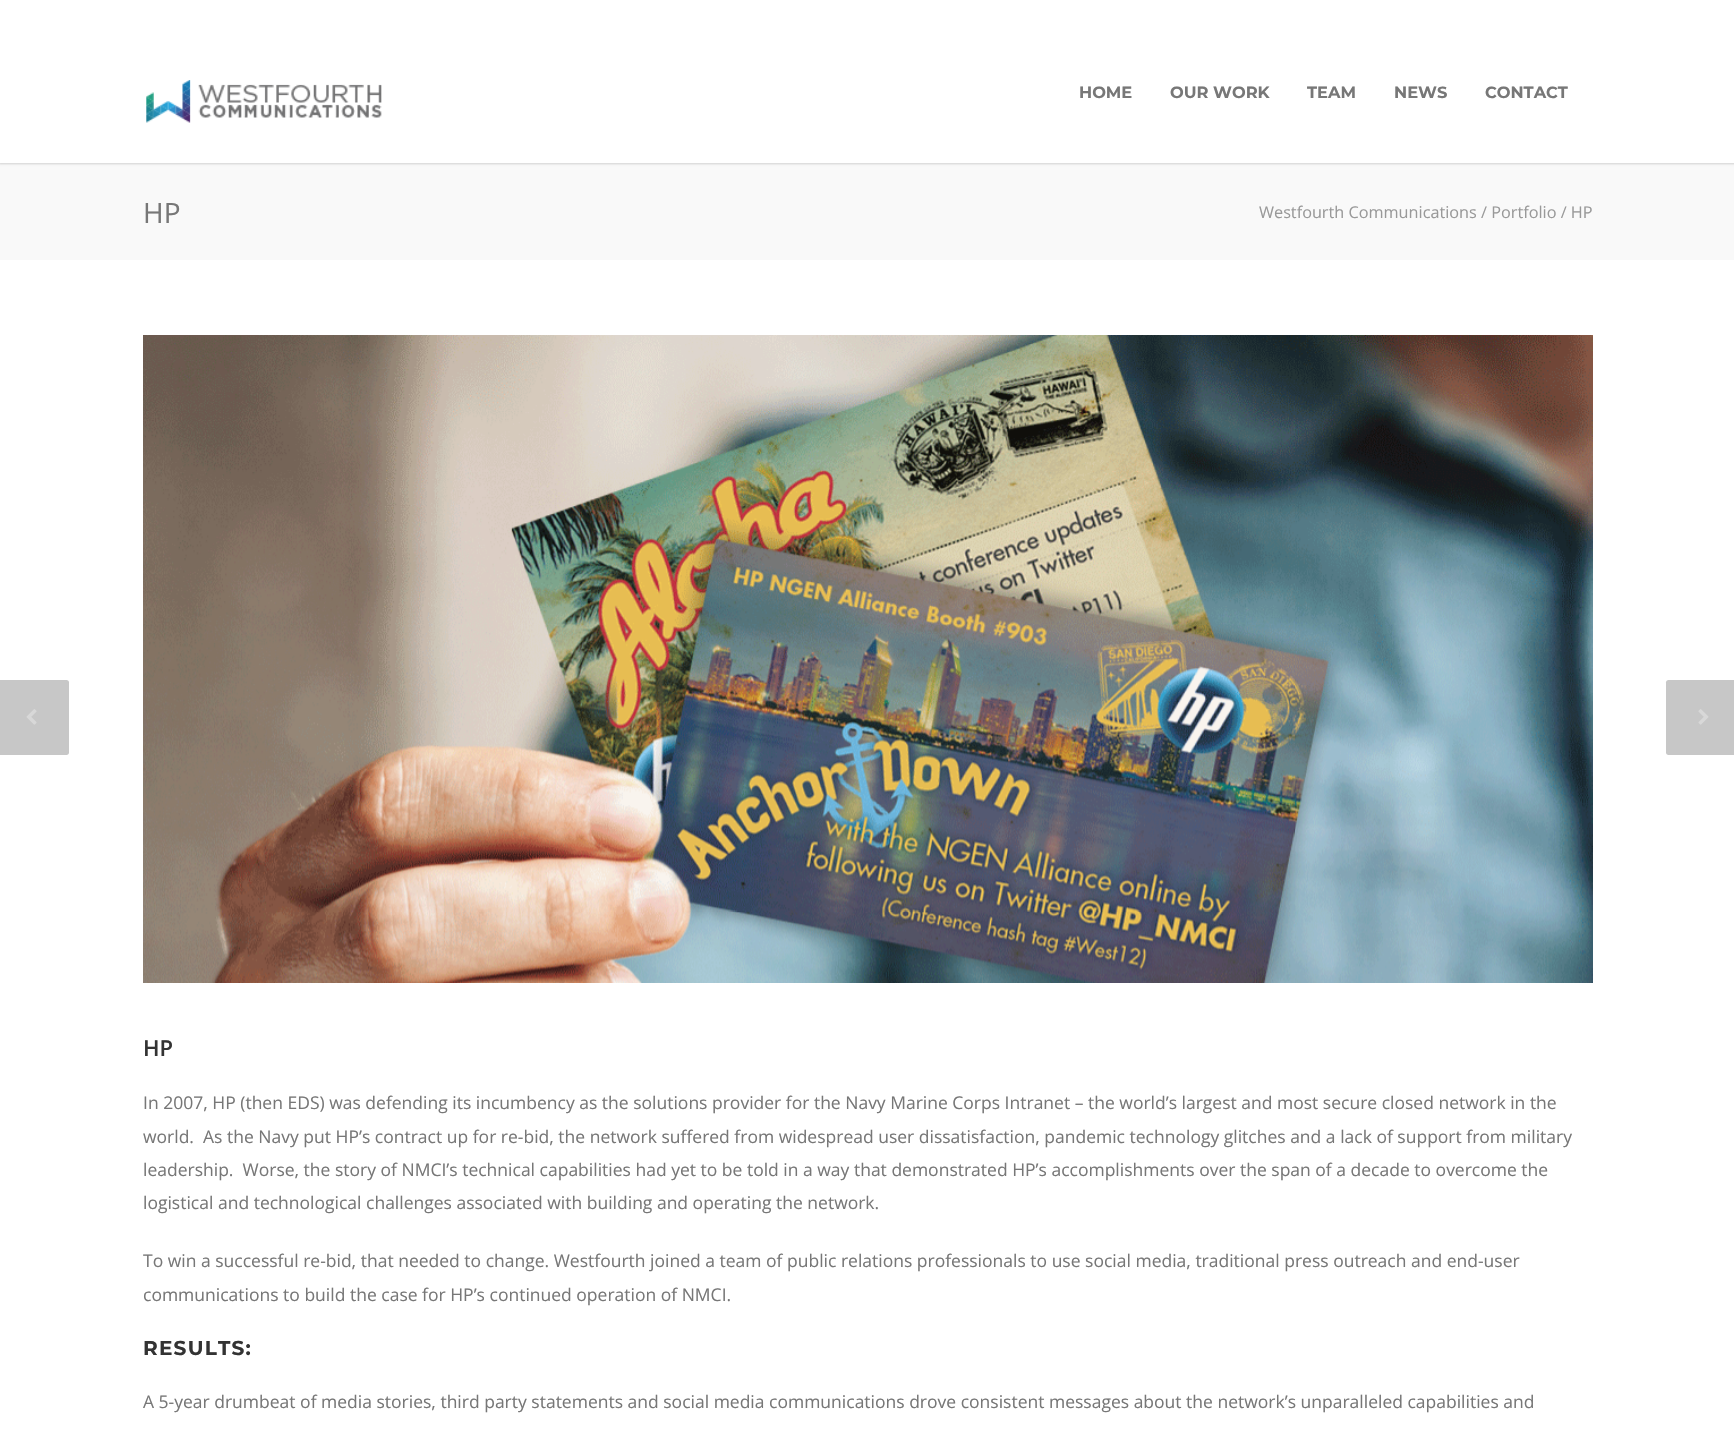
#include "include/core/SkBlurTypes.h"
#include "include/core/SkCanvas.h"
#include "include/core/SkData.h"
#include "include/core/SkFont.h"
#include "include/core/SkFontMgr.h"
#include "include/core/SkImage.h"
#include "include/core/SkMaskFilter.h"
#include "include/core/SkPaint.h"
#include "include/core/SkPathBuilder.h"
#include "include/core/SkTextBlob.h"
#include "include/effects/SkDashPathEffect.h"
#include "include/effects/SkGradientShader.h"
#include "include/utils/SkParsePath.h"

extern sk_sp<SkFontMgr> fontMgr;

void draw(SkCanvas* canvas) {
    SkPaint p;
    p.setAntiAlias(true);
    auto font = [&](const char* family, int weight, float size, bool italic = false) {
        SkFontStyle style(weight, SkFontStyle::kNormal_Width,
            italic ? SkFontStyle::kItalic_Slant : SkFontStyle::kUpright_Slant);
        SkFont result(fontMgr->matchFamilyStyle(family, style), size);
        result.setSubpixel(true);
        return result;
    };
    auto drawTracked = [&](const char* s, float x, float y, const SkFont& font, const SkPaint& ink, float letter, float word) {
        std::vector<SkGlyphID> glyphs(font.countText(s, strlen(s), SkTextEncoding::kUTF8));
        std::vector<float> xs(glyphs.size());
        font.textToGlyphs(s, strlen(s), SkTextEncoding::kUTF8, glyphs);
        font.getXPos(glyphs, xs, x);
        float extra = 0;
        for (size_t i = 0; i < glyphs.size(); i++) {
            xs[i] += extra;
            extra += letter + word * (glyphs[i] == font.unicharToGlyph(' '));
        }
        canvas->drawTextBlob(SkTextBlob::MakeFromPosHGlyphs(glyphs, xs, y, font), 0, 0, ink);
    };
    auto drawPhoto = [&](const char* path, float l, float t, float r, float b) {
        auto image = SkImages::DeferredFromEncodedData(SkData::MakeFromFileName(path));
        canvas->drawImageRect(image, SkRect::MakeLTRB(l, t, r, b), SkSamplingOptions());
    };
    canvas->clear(0xFFFFFFFF);
    p.setColor(0xFFF9F9F9);
    canvas->drawRect(SkRect::MakeLTRB(0, 163, 1734, 260), p);
    p.setColor(0x29000000);
    p.setMaskFilter(SkMaskFilter::MakeBlur(kNormal_SkBlurStyle, 1));
    canvas->drawRect(SkRect::MakeLTRB(-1, -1, 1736, 164), p);
    p.setMaskFilter(nullptr);
    p.setColor(0xFFFFFFFF);
    canvas->drawRect(SkRect::MakeLTRB(0, 0, 1734, 163), p);
    drawPhoto("media/1.png", 146, 80, 382, 123);
    auto font1 = font("Montserrat", 700, 16.25f);
    p.setColor(0xFF777777);
    {
        const struct { const char* s; float x, y; } items[] = {
            {"HOME", 1079, 98},
            {"OUR WORK", 1170, 98},
            {"TEAM", 1307, 98},
            {"NEWS", 1394, 98},
            {"CONTACT", 1485, 98},
        };
        for (auto [s, x, y] : items) {
            canvas->drawString(s, x, y, font1, p);
        }
    }
    auto font2 = font("Open Sans", 400, 28);
    canvas->drawString("HP", 143, 223, font2, p);
    auto font3 = font("Open Sans", 400, 16.25f);
    p.setColor(0xFF999999);
    canvas->drawString("Westfourth Communications / Portfolio / HP", 1259, 218, font3, p);
    p.setColor(0xFFC7C7C7);
    canvas->drawPath(SkPathBuilder().moveTo(-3, 680).lineTo(66.5f, 680).cubicTo(68, 680, 69, 681, 69, 682.5f).lineTo(69, 752.5f).cubicTo(69, 754, 68, 755, 66.5f, 755).lineTo(-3, 755).close().detach(), p);
    drawPhoto("media/2.png", 26, 709, 37, 725);
    canvas->drawPath(SkPathBuilder().moveTo(1668.5f, 680).lineTo(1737, 680).lineTo(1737, 755).lineTo(1668.5f, 755).cubicTo(1667, 755, 1666, 754, 1666, 752.5f).lineTo(1666, 682.5f).cubicTo(1666, 681, 1667, 680, 1668.5f, 680).close().detach(), p);
    drawPhoto("media/3.png", 1698, 709, 1709, 725);
    drawPhoto("media/4.png", 143, 335, 1593, 983);
    auto font4 = font("Open Sans", 600, 22);
    p.setColor(0xFF333333);
    canvas->drawString("HP", 143, 1056, font4, p);
    auto font5 = font("Open Sans", 400, 17.5f);
    p.setColor(0xFF777777);
    {
        const struct { const char* s; float x, y; } items[] = {
            {"In 2007, HP (then EDS) was defending its incumbency as the solutions provider for the Navy Marine Corps Intranet – the world’s largest and most secure closed network in the", 143, 1109},
            {"world.  As the Navy put HP’s contract up for re-bid, the network suffered from widespread user dissatisfaction, pandemic technology glitches and a lack of support from military", 143, 1143},
            {"leadership.  Worse, the story of NMCI’s technical capabilities had yet to be told in a way that demonstrated HP’s accomplishments over the span of a decade to overcome the", 143, 1176},
            {"logistical and technological challenges associated with building and operating the network.", 143, 1209},
            {"To win a successful re-bid, that needed to change. Westfourth joined a team of public relations professionals to use social media, traditional press outreach and end-user", 143, 1267},
            {"communications to build the case for HP’s continued operation of NMCI.", 143, 1301},
        };
        for (auto [s, x, y] : items) {
            canvas->drawString(s, x, y, font5, p);
        }
    }
    auto font6 = font("Montserrat", 700, 20);
    p.setColor(0xFF333333);
    drawTracked("RESULTS:", 143, 1355, font6, p, 1.25f, 0);
    p.setColor(0xFF777777);
    canvas->drawString("A 5-year drumbeat of media stories, third party statements and social media communications drove consistent messages about the network’s unparalleled capabilities and", 143, 1408, font5, p);
}
